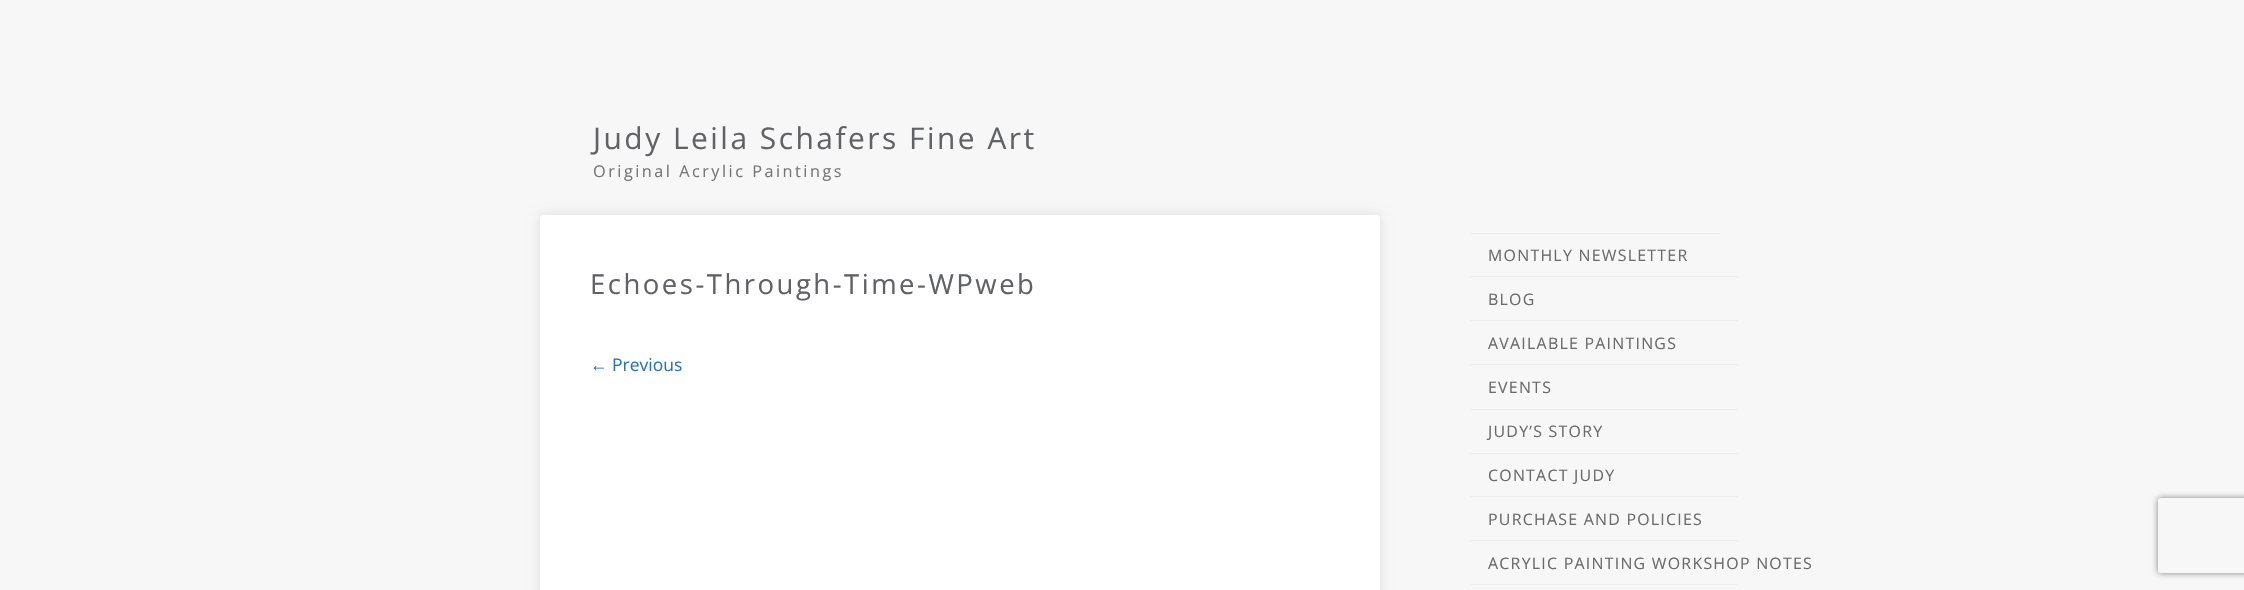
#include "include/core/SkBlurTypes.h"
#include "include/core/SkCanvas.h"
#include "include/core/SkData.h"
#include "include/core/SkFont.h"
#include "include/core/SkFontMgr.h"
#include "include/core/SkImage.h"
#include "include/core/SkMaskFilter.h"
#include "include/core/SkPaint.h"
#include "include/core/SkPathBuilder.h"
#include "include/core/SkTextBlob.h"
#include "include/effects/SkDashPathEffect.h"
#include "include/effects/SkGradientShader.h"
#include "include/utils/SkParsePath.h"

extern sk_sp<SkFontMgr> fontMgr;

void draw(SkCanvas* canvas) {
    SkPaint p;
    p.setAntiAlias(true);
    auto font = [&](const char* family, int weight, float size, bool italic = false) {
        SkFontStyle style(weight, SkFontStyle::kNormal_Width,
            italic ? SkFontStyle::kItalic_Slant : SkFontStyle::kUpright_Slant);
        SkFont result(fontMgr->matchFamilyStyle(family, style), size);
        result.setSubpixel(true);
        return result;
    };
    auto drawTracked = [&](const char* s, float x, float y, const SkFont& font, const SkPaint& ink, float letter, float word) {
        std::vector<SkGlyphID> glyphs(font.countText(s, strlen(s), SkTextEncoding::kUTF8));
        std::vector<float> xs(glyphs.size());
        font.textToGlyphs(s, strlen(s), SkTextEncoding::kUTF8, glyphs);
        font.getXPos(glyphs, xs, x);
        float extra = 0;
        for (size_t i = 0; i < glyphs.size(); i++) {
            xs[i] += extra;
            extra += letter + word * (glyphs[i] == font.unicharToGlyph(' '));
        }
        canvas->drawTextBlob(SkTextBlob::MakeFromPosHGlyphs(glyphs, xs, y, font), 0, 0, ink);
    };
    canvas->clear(0xFFF7F7F7);
    auto font1 = font("Open Sans", 400, 29.9f);
    p.setColor(0xFF616265);
    drawTracked("Judy Leila Schafers Fine Art", 593, 149, font1, p, 2.5f, 0);
    auto font2 = font("Open Sans", 400, 16.25f);
    p.setColor(0xFF757575);
    drawTracked("Original Acrylic Paintings", 593, 177, font2, p, 2.5f, 0);
    p.setColor(0x1A000000);
    p.setMaskFilter(SkMaskFilter::MakeBlur(kNormal_SkBlurStyle, 6));
    canvas->drawRoundRect(SkRect::MakeLTRB(540, 215, 1380, 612), 4, 4, p);
    p.setMaskFilter(nullptr);
    p.setColor(0xFFFFFFFF);
    canvas->drawRoundRect(SkRect::MakeLTRB(540, 215, 1380, 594), 4, 4, p);
    auto font3 = font("Open Sans", 400, 27.5f);
    p.setColor(0xFF616265);
    drawTracked("Echoes-Through-Time-WPweb", 590, 294, font3, p, 2.5f, 0);
    auto font4 = font("Liberation Sans", 400, 17.5f);
    p.setColor(0xFF2B72BB);
    canvas->drawString("←", 590, 371, font4, p);
    auto font5 = font("Open Sans", 400, 17.5f);
    canvas->drawString("Previous", 612, 371, font5, p);
    p.setColor(0xFFEDEDED);
    canvas->drawRect(SkRect::MakeLTRB(1470, 233, 1720, 234), p);
    canvas->drawRect(SkRect::MakeLTRB(1470, 276, 1738, 277), p);
    auto font6 = font("Open Sans", 400, 15.9f);
    p.setColor(0xFF6A6A6A);
    drawTracked("MONTHLY NEWSLETTER", 1488, 261, font6, p, 1.25f, 0);
    p.setColor(0xFFEDEDED);
    canvas->drawRect(SkRect::MakeLTRB(1470, 320, 1738, 321), p);
    p.setColor(0xFF6A6A6A);
    drawTracked("BLOG", 1488, 305, font6, p, 1.25f, 0);
    p.setColor(0xFFEDEDED);
    canvas->drawRect(SkRect::MakeLTRB(1470, 364, 1738, 365), p);
    p.setColor(0xFF6A6A6A);
    drawTracked("AVAILABLE PAINTINGS", 1488, 349, font6, p, 1.25f, 0);
    p.setColor(0xFFEDEDED);
    canvas->drawRect(SkRect::MakeLTRB(1470, 409, 1738, 410), p);
    p.setColor(0xFF6A6A6A);
    drawTracked("EVENTS", 1488, 393, font6, p, 1.25f, 0);
    p.setColor(0xFFEDEDED);
    canvas->drawRect(SkRect::MakeLTRB(1470, 453, 1738, 454), p);
    p.setColor(0xFF6A6A6A);
    drawTracked("JUDY’S STORY", 1488, 437, font6, p, 1.25f, 0);
    p.setColor(0xFFEDEDED);
    canvas->drawRect(SkRect::MakeLTRB(1470, 496, 1738, 497), p);
    p.setColor(0xFF6A6A6A);
    drawTracked("CONTACT JUDY", 1488, 481, font6, p, 1.25f, 0);
    p.setColor(0xFFEDEDED);
    canvas->drawRect(SkRect::MakeLTRB(1470, 540, 1738, 541), p);
    p.setColor(0xFF6A6A6A);
    drawTracked("PURCHASE AND POLICIES", 1488, 525, font6, p, 1.25f, 0);
    p.setColor(0xFFEDEDED);
    canvas->drawRect(SkRect::MakeLTRB(1470, 584, 1738, 585), p);
    p.setColor(0xFF6A6A6A);
    drawTracked("ACRYLIC PAINTING WORKSHOP NOTES", 1488, 569, font6, p, 1.25f, 0);
    canvas->save();
    canvas->clipPath(SkPathBuilder(SkPathFillType::kEvenOdd).moveTo(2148, 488).lineTo(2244, 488).lineTo(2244, 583).lineTo(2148, 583).close().moveTo(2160.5f, 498).lineTo(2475.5f, 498).cubicTo(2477, 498, 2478, 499, 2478, 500.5f).lineTo(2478, 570.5f).cubicTo(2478, 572, 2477, 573, 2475.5f, 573).lineTo(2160.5f, 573).cubicTo(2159, 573, 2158, 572, 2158, 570.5f).lineTo(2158, 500.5f).cubicTo(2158, 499, 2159, 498, 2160.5f, 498).close().detach(), true);
    p.setColor(0xFF808080);
    p.setMaskFilter(SkMaskFilter::MakeBlur(kNormal_SkBlurStyle, 3));
    canvas->drawRoundRect(SkRect::MakeLTRB(2158, 498, 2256, 573), 2.5f, 2.5f, p);
    p.setMaskFilter(nullptr);
    canvas->restore();
}
